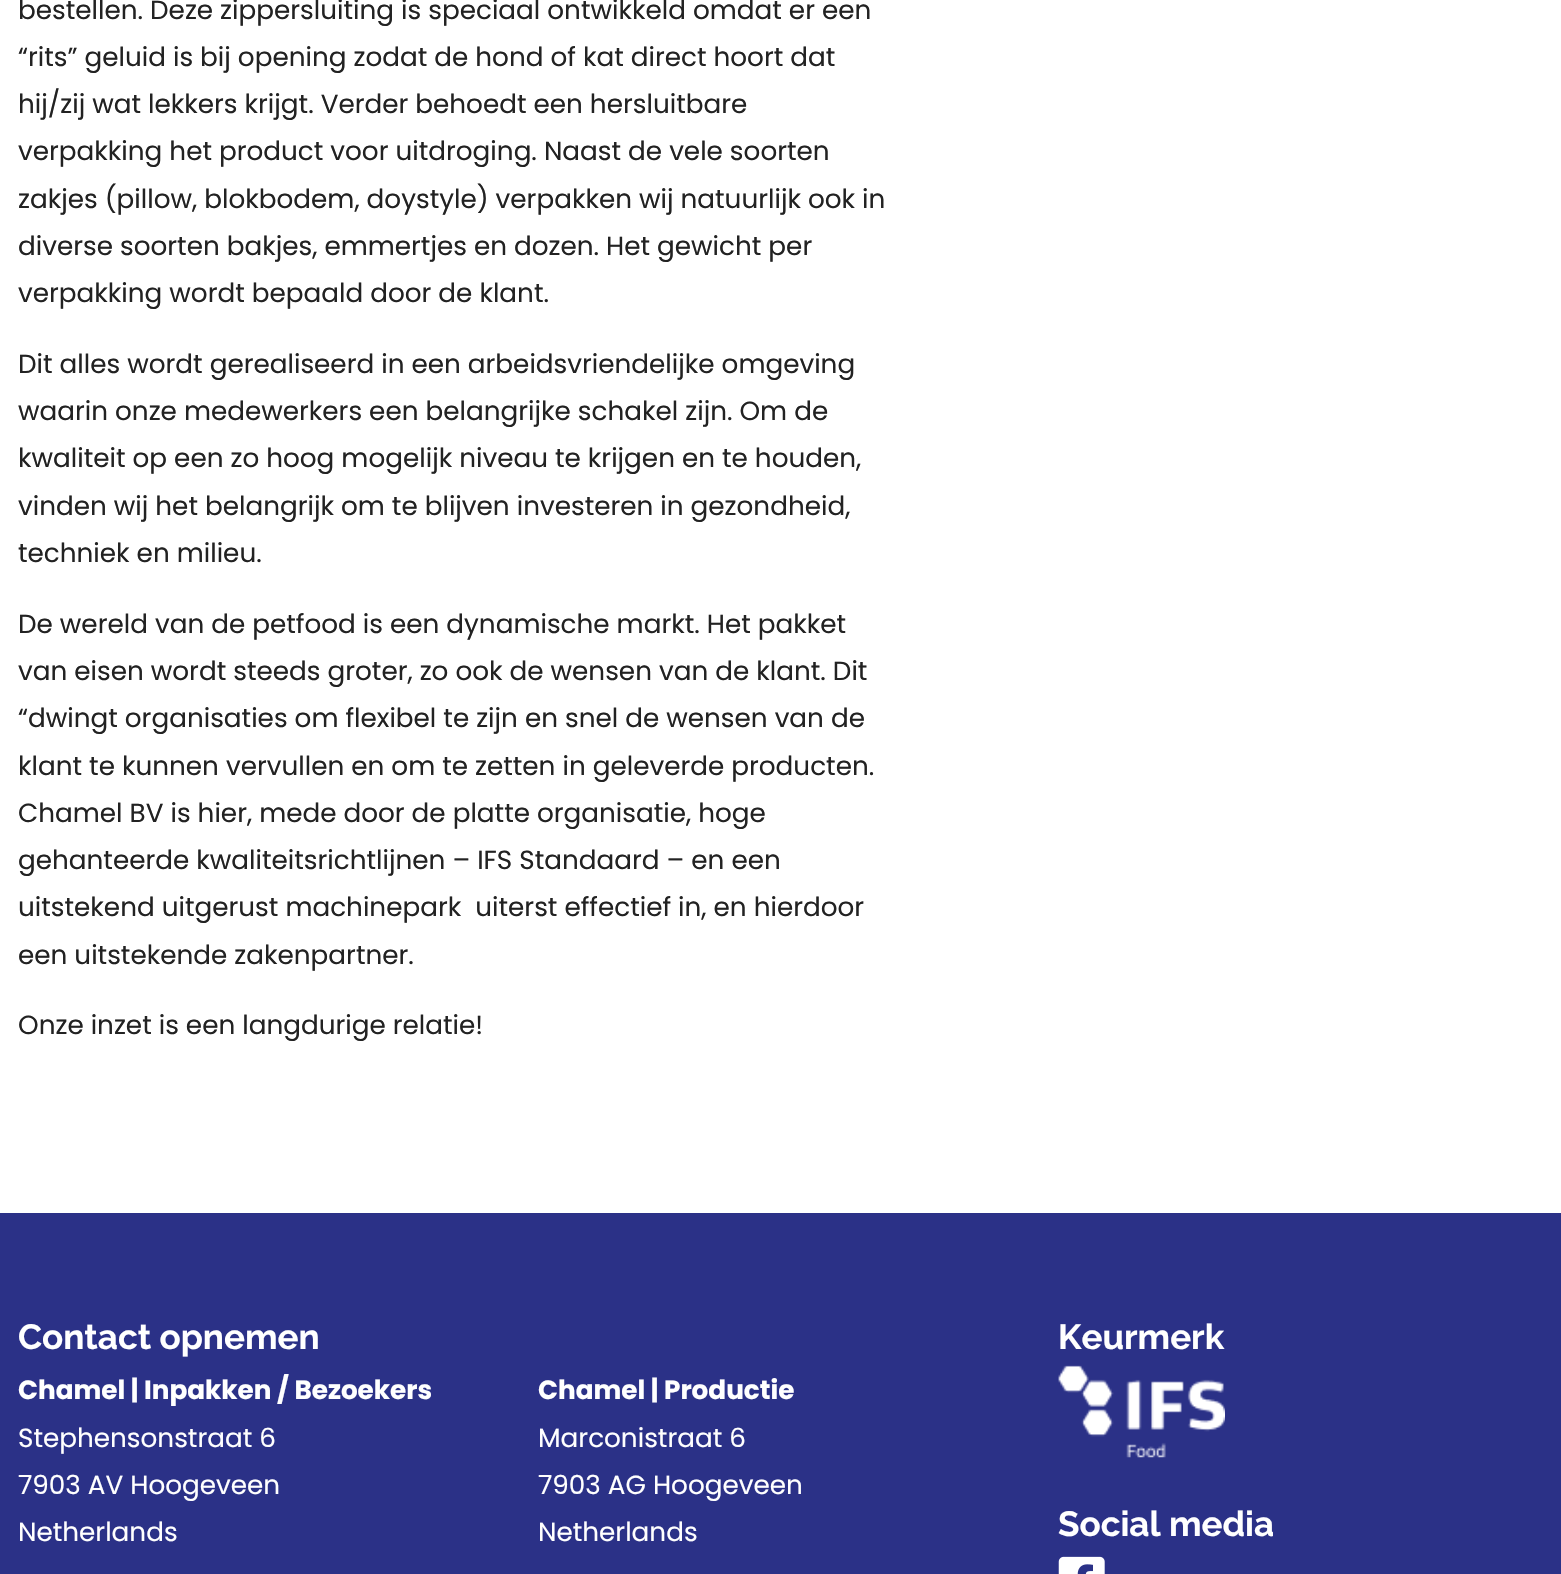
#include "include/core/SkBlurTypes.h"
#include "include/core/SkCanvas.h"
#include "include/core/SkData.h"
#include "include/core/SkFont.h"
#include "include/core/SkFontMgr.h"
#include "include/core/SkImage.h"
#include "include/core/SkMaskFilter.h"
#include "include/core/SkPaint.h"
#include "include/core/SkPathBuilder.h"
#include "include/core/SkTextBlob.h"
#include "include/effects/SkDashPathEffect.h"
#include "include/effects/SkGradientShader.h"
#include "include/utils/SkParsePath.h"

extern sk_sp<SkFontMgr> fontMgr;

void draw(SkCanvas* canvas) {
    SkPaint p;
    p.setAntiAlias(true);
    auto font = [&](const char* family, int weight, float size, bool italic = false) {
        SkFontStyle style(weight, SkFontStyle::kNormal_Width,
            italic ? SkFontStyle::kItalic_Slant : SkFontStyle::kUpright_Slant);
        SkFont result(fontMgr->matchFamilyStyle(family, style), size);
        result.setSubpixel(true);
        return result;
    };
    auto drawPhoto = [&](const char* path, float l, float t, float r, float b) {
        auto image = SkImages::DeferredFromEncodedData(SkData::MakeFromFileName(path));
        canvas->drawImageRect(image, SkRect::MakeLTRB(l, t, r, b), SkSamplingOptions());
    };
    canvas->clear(0xFFFFFFFF);
    auto font1 = font("Poppins", 400, 26.25f);
    p.setColor(0xFF222222);
    {
        const struct { const char* s; float x, y; } items[] = {
            {"bestellen. Deze zippersluiting is speciaal ontwikkeld omdat er een", 18, 19},
            {"“rits” geluid is bij opening zodat de hond of kat direct hoort dat", 18, 66},
            {"hij/zij wat lekkers krijgt. Verder behoedt een hersluitbare", 18, 113},
            {"verpakking het product voor uitdroging. Naast de vele soorten", 18, 160},
            {"zakjes (pillow, blokbodem, doystyle) verpakken wij natuurlijk ook in", 18, 208},
            {"diverse soorten bakjes, emmertjes en dozen. Het gewicht per", 18, 255},
            {"verpakking wordt bepaald door de klant.", 18, 302},
            {"Dit alles wordt gerealiseerd in een arbeidsvriendelijke omgeving", 18, 373},
            {"waarin onze medewerkers een belangrijke schakel zijn. Om de", 18, 420},
            {"kwaliteit op een zo hoog mogelijk niveau te krijgen en te houden,", 18, 467},
            {"vinden wij het belangrijk om te blijven investeren in gezondheid,", 18, 515},
            {"techniek en milieu.", 18, 562},
            {"De wereld van de petfood is een dynamische markt. Het pakket", 18, 633},
            {"van eisen wordt steeds groter, zo ook de wensen van de klant. Dit", 18, 680},
            {"“dwingt organisaties om flexibel te zijn en snel de wensen van de", 18, 727},
            {"klant te kunnen vervullen en om te zetten in geleverde producten.", 18, 775},
            {"Chamel BV is hier, mede door de platte organisatie, hoge", 18, 822},
            {"gehanteerde kwaliteitsrichtlijnen – IFS Standaard – en een", 18, 869},
            {"uitstekend uitgerust machinepark  uiterst effectief in, en hierdoor", 18, 916},
            {"een uitstekende zakenpartner.", 18, 964},
            {"Onze inzet is een langdurige relatie!", 18, 1034},
        };
        for (auto [s, x, y] : items) {
            canvas->drawString(s, x, y, font1, p);
        }
    }
    p.setColor(0xFF2B3187);
    canvas->drawRect(SkRect::MakeLTRB(0, 1213, 1561, 1574), p);
    auto font2 = font("Raleway", 100, 35);
    p.setColor(0xFFFFFFFF);
    canvas->drawString("Contact opnemen", 18, 1349, font2, p);
    auto font3 = font("Poppins", 700, 26.25f);
    canvas->drawString("Chamel | Inpakken / Bezoekers", 18, 1399, font3, p);
    {
        const struct { const char* s; float x, y; } items[] = {
            {"Stephensonstraat 6", 18, 1447},
            {"7903 AV Hoogeveen", 18, 1494},
            {"Netherlands", 18, 1541},
        };
        for (auto [s, x, y] : items) {
            canvas->drawString(s, x, y, font1, p);
        }
    }
    canvas->drawString("Chamel | Productie", 538, 1399, font3, p);
    {
        const struct { const char* s; float x, y; } items[] = {
            {"Marconistraat 6", 538, 1447},
            {"7903 AG Hoogeveen", 538, 1494},
            {"Netherlands", 538, 1541},
        };
        for (auto [s, x, y] : items) {
            canvas->drawString(s, x, y, font1, p);
        }
    }
    canvas->drawString("Keurmerk", 1058, 1349, font2, p);
    drawPhoto("media/1.png", 1058, 1365, 1225, 1458);
    canvas->drawString("Social media", 1058, 1536, font2, p);
    drawPhoto("media/2.png", 1058, 1556, 1105, 1574);
}
